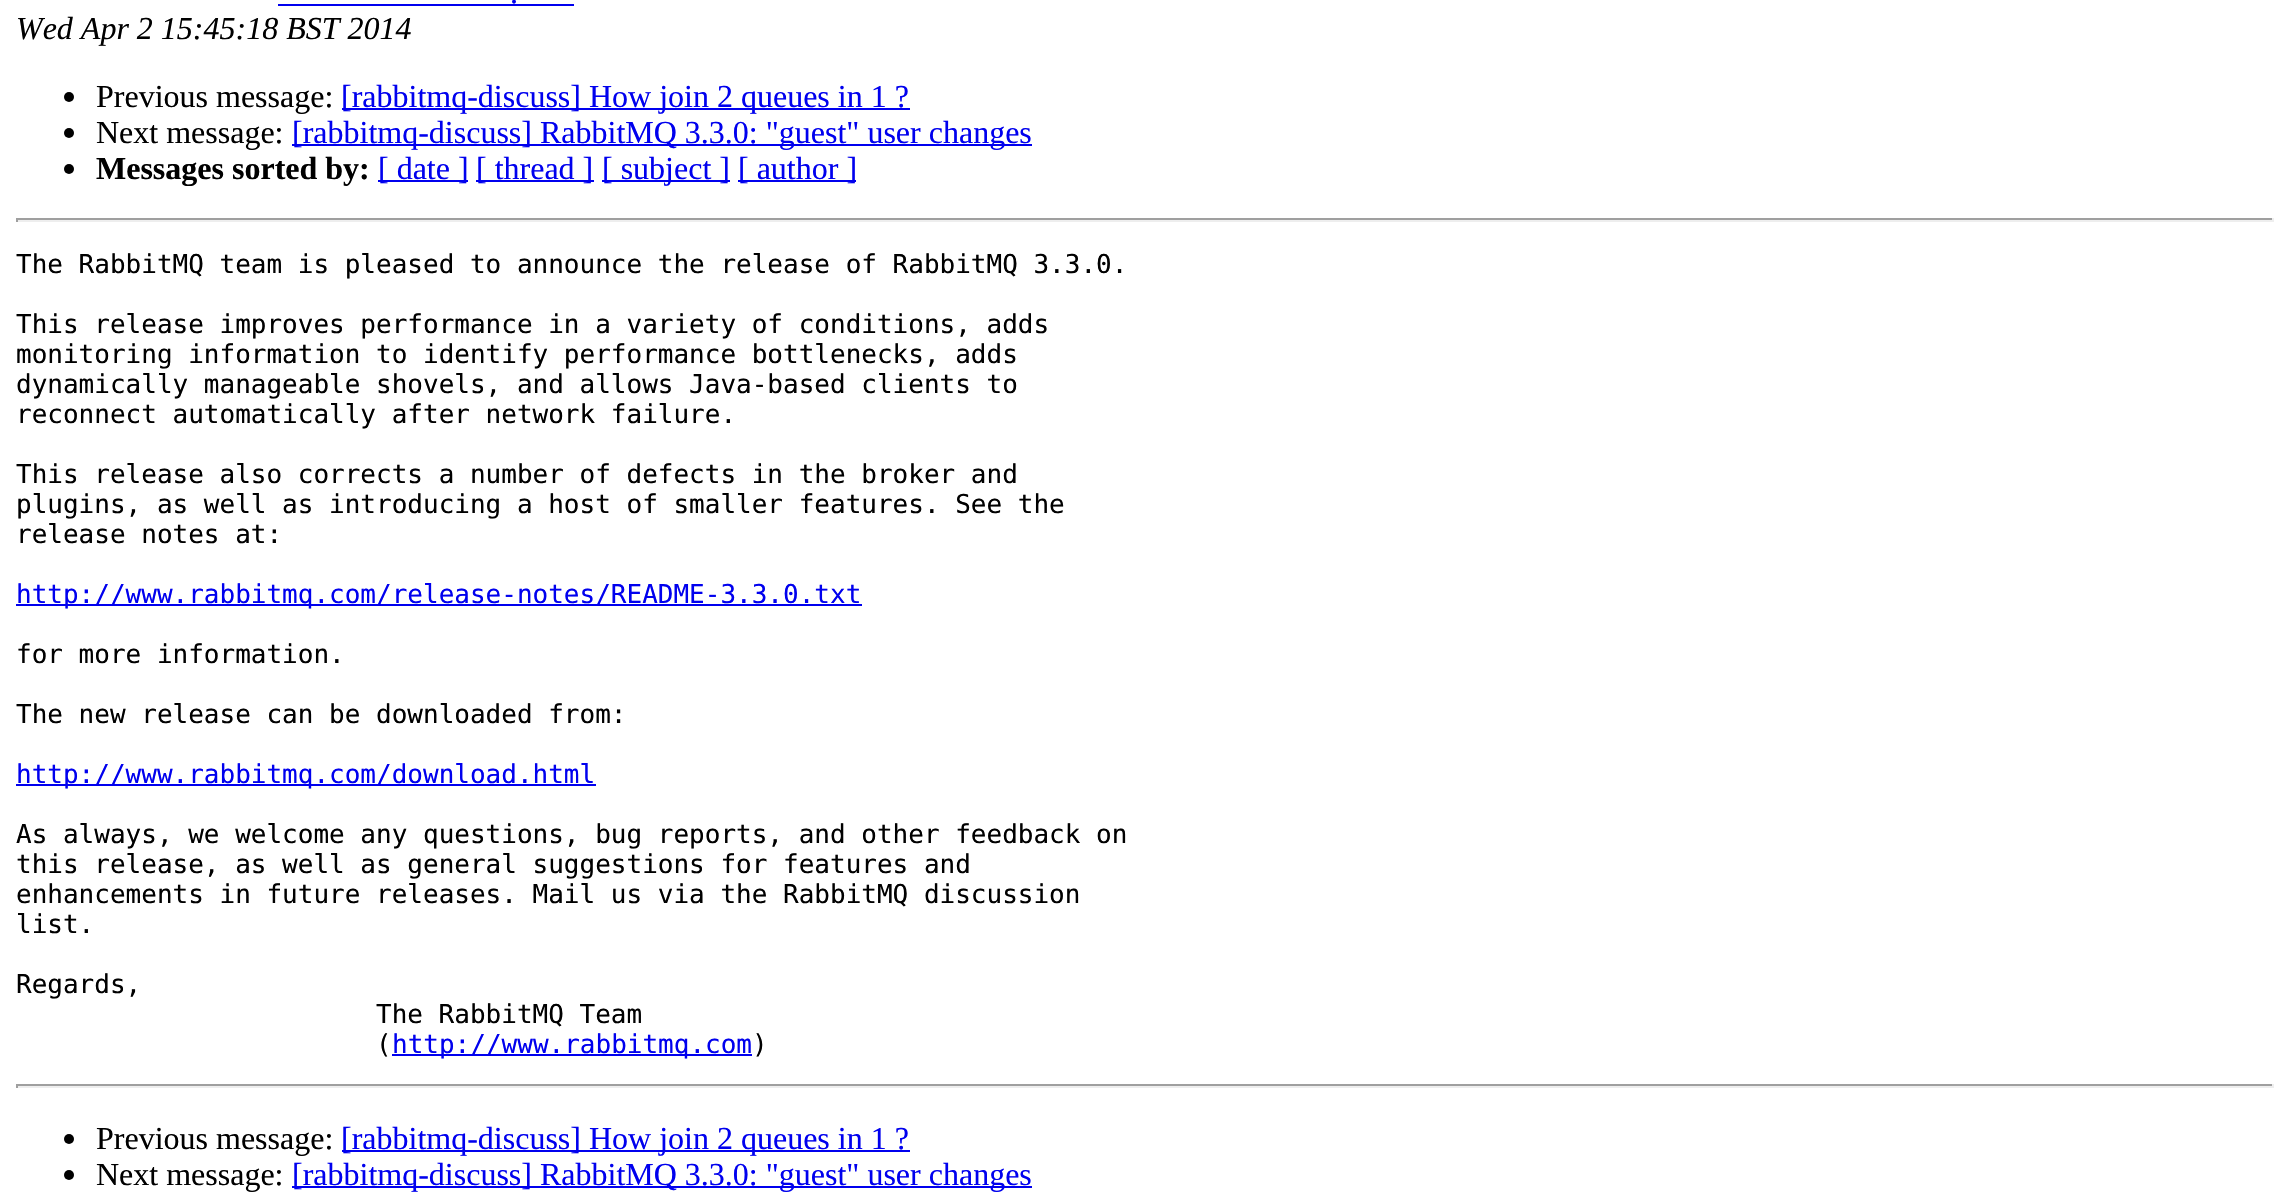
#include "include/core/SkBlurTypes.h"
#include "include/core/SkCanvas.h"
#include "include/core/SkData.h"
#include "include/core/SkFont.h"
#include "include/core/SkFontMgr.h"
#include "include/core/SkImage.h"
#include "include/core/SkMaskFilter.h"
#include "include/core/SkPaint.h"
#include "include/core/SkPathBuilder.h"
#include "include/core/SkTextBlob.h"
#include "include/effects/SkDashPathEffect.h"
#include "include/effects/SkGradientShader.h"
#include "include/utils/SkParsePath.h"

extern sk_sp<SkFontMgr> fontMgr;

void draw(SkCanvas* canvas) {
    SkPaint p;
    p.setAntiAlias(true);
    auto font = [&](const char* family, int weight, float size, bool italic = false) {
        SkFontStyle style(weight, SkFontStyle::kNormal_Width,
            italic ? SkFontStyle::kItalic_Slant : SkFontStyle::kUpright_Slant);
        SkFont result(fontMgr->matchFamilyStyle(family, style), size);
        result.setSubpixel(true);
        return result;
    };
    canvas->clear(0xFFFFFFFF);
    auto font1 = font("Liberation Serif", 400, 32);
    p.setColor(0xFF0000EE);
    canvas->drawString(".", 510, 3, font1, p);
    canvas->drawRect(SkRect::MakeLTRB(278, 4, 574, 6), p);
    auto font2 = font("Liberation Serif", 400, 32, true);
    p.setColor(0xFF000000);
    canvas->drawString("Wed Apr 2 15:45:18 BST 2014", 16, 39, font2, p);
    canvas->drawCircle(69, 97, 5, p);
    canvas->drawString("Previous message:", 96, 107, font1, p);
    p.setColor(0xFF0000EE);
    canvas->drawRect(SkRect::MakeLTRB(342, 108, 910, 110), p);
    canvas->drawString("[rabbitmq-discuss] How join 2 queues in 1 ?", 341, 107, font1, p);
    p.setColor(0xFF000000);
    canvas->drawCircle(69, 133, 5, p);
    canvas->drawString("Next message:", 96, 143, font1, p);
    p.setColor(0xFF0000EE);
    canvas->drawRect(SkRect::MakeLTRB(292, 144, 1032, 146), p);
    canvas->drawString("[rabbitmq-discuss] RabbitMQ 3.3.0: \"guest\" user changes", 292, 143, font1, p);
    p.setColor(0xFF000000);
    canvas->drawCircle(69, 169, 5, p);
    auto font3 = font("Liberation Serif", 700, 32);
    canvas->drawString("Messages sorted by:", 96, 179, font3, p);
    p.setColor(0xFF0000EE);
    canvas->drawRect(SkRect::MakeLTRB(378, 180, 468, 182), p);
    canvas->drawString("[ date ]", 378, 179, font1, p);
    canvas->drawRect(SkRect::MakeLTRB(476, 180, 594, 182), p);
    canvas->drawString("[ thread ]", 476, 179, font1, p);
    canvas->drawRect(SkRect::MakeLTRB(602, 180, 730, 182), p);
    canvas->drawString("[ subject ]", 602, 179, font1, p);
    canvas->drawRect(SkRect::MakeLTRB(738, 180, 856, 182), p);
    canvas->drawString("[ author ]", 738, 179, font1, p);
    {
        const struct { float l, t, r, b; SkColor color; } items[] = {
            {16, 218, 2274, 220, 0xFF9F9F9F},
            {2272, 218, 2274, 222, 0xFFEEEEEE},
            {16, 220, 2274, 222, 0xFFEEEEEE},
            {16, 218, 18, 222, 0xFF9F9F9F},
        };
        for (auto [l, t, r, b, color] : items) {
            p.setColor(color);
            canvas->drawRect(SkRect::MakeLTRB(l, t, r, b), p);
        }
    }
    auto font4 = font("DejaVu Sans Mono", 400, 26);
    p.setColor(0xFF000000);
    {
        const struct { const char* s; float x, y; } items[] = {
            {"The RabbitMQ team is pleased to announce the release of RabbitMQ 3.3.0.", 16, 273},
            {"This release improves performance in a variety of conditions, adds", 16, 333},
            {"monitoring information to identify performance bottlenecks, adds", 16, 363},
            {"dynamically manageable shovels, and allows Java-based clients to", 16, 393},
            {"reconnect automatically after network failure.", 16, 423},
            {"This release also corrects a number of defects in the broker and", 16, 483},
            {"plugins, as well as introducing a host of smaller features. See the", 16, 513},
            {"release notes at:", 16, 543},
        };
        for (auto [s, x, y] : items) {
            canvas->drawString(s, x, y, font4, p);
        }
    }
    p.setColor(0xFF0000EE);
    canvas->drawRect(SkRect::MakeLTRB(16, 604, 862, 606), p);
    canvas->drawString("http://www.rabbitmq.com/release-notes/README-3.3.0.txt", 16, 603, font4, p);
    p.setColor(0xFF000000);
    canvas->drawString("for more information.", 16, 663, font4, p);
    canvas->drawString("The new release can be downloaded from:", 16, 723, font4, p);
    p.setColor(0xFF0000EE);
    canvas->drawRect(SkRect::MakeLTRB(16, 784, 596, 786), p);
    canvas->drawString("http://www.rabbitmq.com/download.html", 16, 783, font4, p);
    p.setColor(0xFF000000);
    {
        const struct { const char* s; float x, y; } items[] = {
            {"As always, we welcome any questions, bug reports, and other feedback on", 16, 843},
            {"this release, as well as general suggestions for features and", 16, 873},
            {"enhancements in future releases. Mail us via the RabbitMQ discussion", 16, 903},
            {"list.", 16, 933},
            {"Regards,", 16, 993},
            {"The RabbitMQ Team", 376, 1023},
            {"(", 376, 1053},
        };
        for (auto [s, x, y] : items) {
            canvas->drawString(s, x, y, font4, p);
        }
    }
    p.setColor(0xFF0000EE);
    canvas->drawRect(SkRect::MakeLTRB(392, 1054, 752, 1056), p);
    canvas->drawString("http://www.rabbitmq.com", 392, 1053, font4, p);
    p.setColor(0xFF000000);
    canvas->drawString(")", 752, 1053, font4, p);
    {
        const struct { float l, t, r, b; SkColor color; } items[] = {
            {16, 1084, 2274, 1086, 0xFF9F9F9F},
            {2272, 1084, 2274, 1088, 0xFFEEEEEE},
            {16, 1086, 2274, 1088, 0xFFEEEEEE},
            {16, 1084, 18, 1088, 0xFF9F9F9F},
        };
        for (auto [l, t, r, b, color] : items) {
            p.setColor(color);
            canvas->drawRect(SkRect::MakeLTRB(l, t, r, b), p);
        }
    }
    p.setColor(0xFF000000);
    canvas->drawCircle(69, 1139, 5, p);
    canvas->drawString("Previous message:", 96, 1149, font1, p);
    p.setColor(0xFF0000EE);
    canvas->drawRect(SkRect::MakeLTRB(342, 1150, 910, 1152), p);
    canvas->drawString("[rabbitmq-discuss] How join 2 queues in 1 ?", 341, 1149, font1, p);
    p.setColor(0xFF000000);
    canvas->drawCircle(69, 1175, 5, p);
    canvas->drawString("Next message:", 96, 1185, font1, p);
    p.setColor(0xFF0000EE);
    canvas->drawRect(SkRect::MakeLTRB(292, 1186, 1032, 1188), p);
    canvas->drawString("[rabbitmq-discuss] RabbitMQ 3.3.0: \"guest\" user changes", 292, 1185, font1, p);
}
